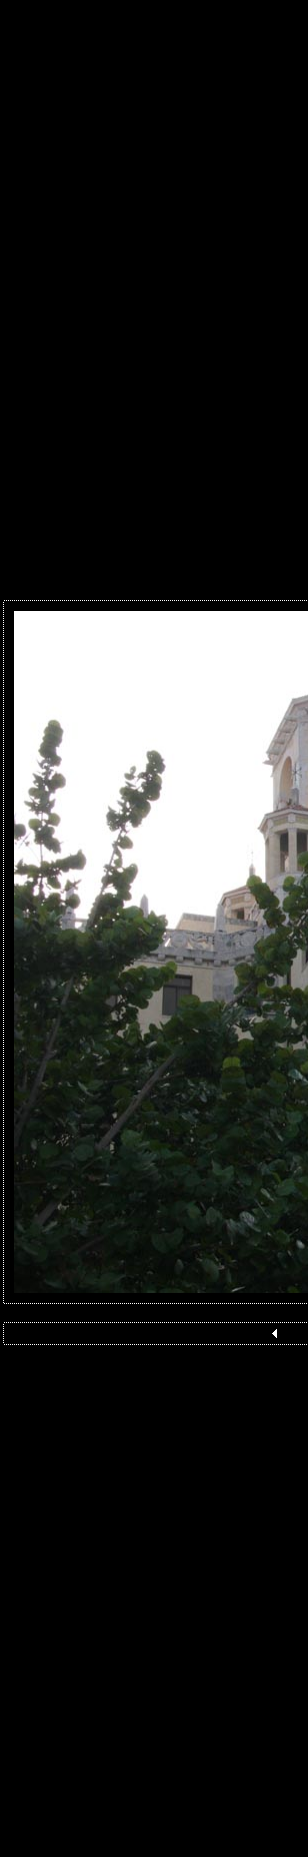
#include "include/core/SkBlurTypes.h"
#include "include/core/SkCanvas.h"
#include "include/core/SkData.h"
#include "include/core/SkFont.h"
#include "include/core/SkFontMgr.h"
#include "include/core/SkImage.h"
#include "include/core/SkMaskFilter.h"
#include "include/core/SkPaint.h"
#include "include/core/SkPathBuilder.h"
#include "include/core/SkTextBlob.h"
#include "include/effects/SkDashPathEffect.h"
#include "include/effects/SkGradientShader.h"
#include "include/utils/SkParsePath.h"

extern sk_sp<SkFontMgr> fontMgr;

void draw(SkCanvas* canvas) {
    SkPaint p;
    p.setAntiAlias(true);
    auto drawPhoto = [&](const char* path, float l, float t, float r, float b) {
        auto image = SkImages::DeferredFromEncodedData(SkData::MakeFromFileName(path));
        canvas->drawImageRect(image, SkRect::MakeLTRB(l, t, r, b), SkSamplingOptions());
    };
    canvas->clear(0xFF000000);
    drawPhoto("media/1.png", 4, 600, 307, 601);
    drawPhoto("media/2.png", 3, 602, 4, 1303);
    drawPhoto("media/3.png", 14, 611, 308, 1293);
    drawPhoto("media/1.png", 4, 1303, 307, 1304);
    drawPhoto("media/1.png", 4, 1322, 307, 1323);
    drawPhoto("media/4.png", 3, 1324, 4, 1343);
    drawPhoto("media/5.png", 272, 1329, 277, 1338);
    drawPhoto("media/1.png", 4, 1344, 307, 1345);
}
